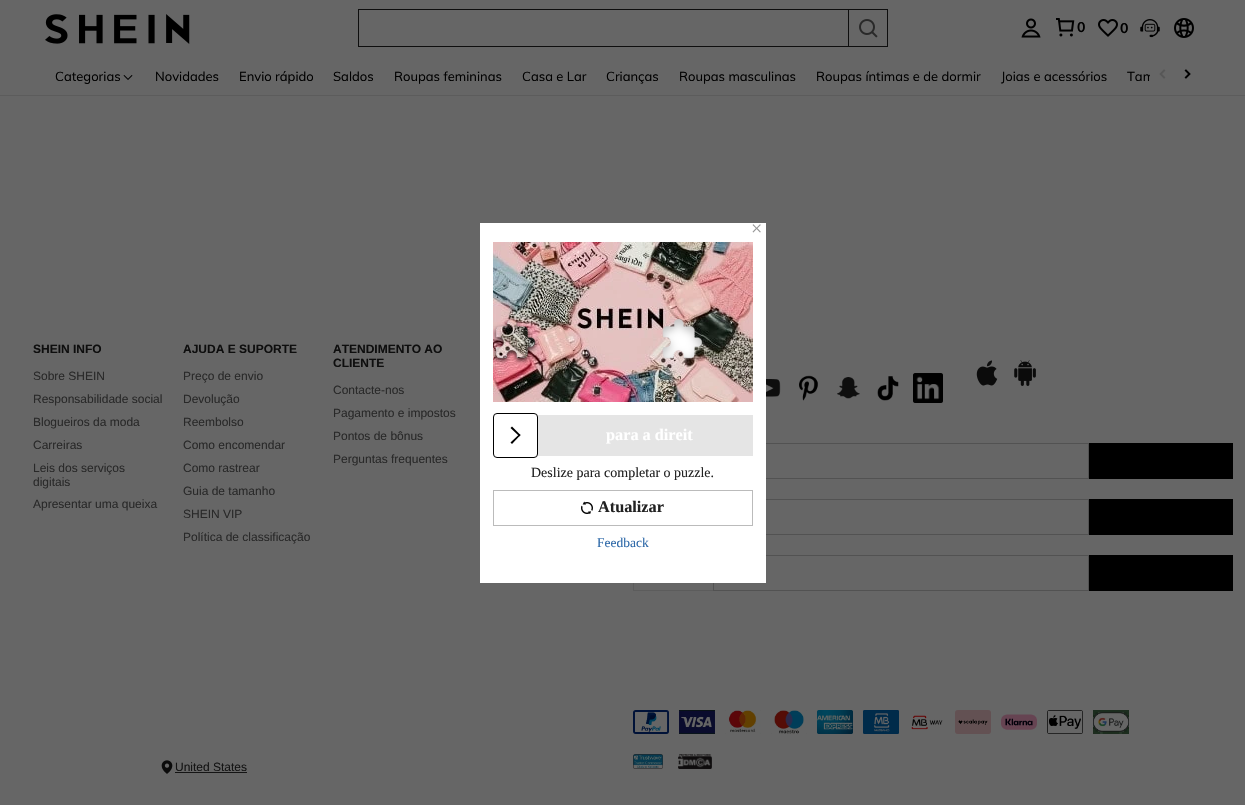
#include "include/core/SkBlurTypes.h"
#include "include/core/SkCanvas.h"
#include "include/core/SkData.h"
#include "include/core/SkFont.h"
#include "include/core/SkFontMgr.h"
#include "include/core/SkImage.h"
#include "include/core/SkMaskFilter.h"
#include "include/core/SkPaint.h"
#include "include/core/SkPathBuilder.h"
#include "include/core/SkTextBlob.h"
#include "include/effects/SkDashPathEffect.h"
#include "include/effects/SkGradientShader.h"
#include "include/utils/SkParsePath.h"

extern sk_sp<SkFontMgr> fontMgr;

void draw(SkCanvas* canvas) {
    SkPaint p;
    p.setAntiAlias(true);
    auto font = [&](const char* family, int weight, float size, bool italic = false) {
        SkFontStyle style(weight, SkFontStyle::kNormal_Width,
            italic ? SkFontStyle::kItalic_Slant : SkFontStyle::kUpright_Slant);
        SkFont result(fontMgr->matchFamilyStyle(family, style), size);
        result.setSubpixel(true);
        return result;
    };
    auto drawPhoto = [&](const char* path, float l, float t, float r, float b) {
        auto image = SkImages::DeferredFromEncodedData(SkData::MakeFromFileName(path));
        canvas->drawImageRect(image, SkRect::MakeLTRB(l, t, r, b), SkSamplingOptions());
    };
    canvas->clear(0xFF666666);
    drawPhoto("media/1.png", 45, 14, 190, 44);
    {
        const struct { float l, t, r, b; SkColor color; } items[] = {
            {358, 9, 848, 10, 0xFF0E0E0E},
            {358, 46, 848, 47, 0xFF0E0E0E},
            {358, 9, 359, 47, 0xFF0E0E0E},
        };
        for (auto [l, t, r, b, color] : items) {
            p.setColor(color);
            canvas->drawRect(SkRect::MakeLTRB(l, t, r, b), p);
        }
    }
    p.setStyle(SkPaint::kStroke_Style);
    p.setStrokeWidth(1);
    canvas->drawRect(SkRect::MakeLTRB(848.5f, 9.5f, 887.5f, 46.5f), p);
    drawPhoto("media/2.png", 859, 19, 878, 38);
    drawPhoto("media/3.png", 1021, 18, 1041, 38);
    drawPhoto("media/4.png", 1056, 18, 1075, 37);
    auto font1 = font("Muli", 700, 14);
    p.setStyle(SkPaint::kFill_Style);
    p.setColor(0xFF000000);
    canvas->drawString("0", 1077, 32, font1, p);
    drawPhoto("media/5.png", 1098, 19, 1118, 37);
    canvas->drawString("0", 1120, 33, font1, p);
    drawPhoto("media/6.png", 1140, 19, 1160, 38);
    drawPhoto("media/7.png", 1174, 18, 1194, 38);
    p.setColor(0xFF5C5C5C);
    canvas->drawRect(SkRect::MakeLTRB(0, 95, 1245, 96), p);
    auto font2 = font("Muli", 400, 13);
    p.setColor(0xFF000000);
    canvas->drawString("Categorias", 55, 81, font2, p);
    drawPhoto("media/8.png", 123, 75, 133, 80);
    {
        const struct { const char* s; float x, y; } items[] = {
            {"Novidades", 155, 81},
            {"Envio rápido", 239, 81},
            {"Saldos", 333, 81},
            {"Roupas femininas", 394, 81},
            {"Casa e Lar", 522, 81},
            {"Crianças", 606, 81},
            {"Roupas masculinas", 679, 81},
            {"Roupas íntimas e de dormir", 816, 81},
            {"Joias e acessórios", 1001, 81},
            {"Tam", 1127, 81},
        };
        for (auto [s, x, y] : items) {
            canvas->drawString(s, x, y, font2, p);
        }
    }
    p.setColor(0xFF666666);
    canvas->drawRect(SkRect::MakeLTRB(1150, 74, 1154, 81), p);
    drawPhoto("media/9.png", 1159, 69, 1166, 79);
    drawPhoto("media/10.png", 1184, 69, 1191, 79);
    auto font3 = font("Liberation Sans", 700, 12);
    p.setColor(0xFF0E0E0E);
    canvas->drawString("SHEIN INFO", 33, 353, font3, p);
    auto font4 = font("Liberation Sans", 400, 12);
    p.setColor(0xFF292929);
    {
        const struct { const char* s; float x, y; } items[] = {
            {"Sobre SHEIN", 33, 380},
            {"Responsabilidade social", 33, 403},
            {"Blogueiros da moda", 33, 426},
            {"Carreiras", 33, 449},
            {"Leis dos serviços", 33, 472},
            {"digitais", 33, 486},
            {"Apresentar uma queixa", 33, 508},
        };
        for (auto [s, x, y] : items) {
            canvas->drawString(s, x, y, font4, p);
        }
    }
    p.setColor(0xFF0E0E0E);
    canvas->drawString("AJUDA E SUPORTE", 183, 353, font3, p);
    p.setColor(0xFF292929);
    {
        const struct { const char* s; float x, y; } items[] = {
            {"Preço de envio", 183, 380},
            {"Devolução", 183, 403},
            {"Reembolso", 183, 426},
            {"Como encomendar", 183, 449},
            {"Como rastrear", 183, 472},
            {"Guia de tamanho", 183, 495},
            {"SHEIN VIP", 183, 518},
            {"Política de classificação", 183, 541},
        };
        for (auto [s, x, y] : items) {
            canvas->drawString(s, x, y, font4, p);
        }
    }
    p.setColor(0xFF0E0E0E);
    canvas->drawString("ATENDIMENTO AO", 333, 353, font3, p);
    canvas->drawString("CLIENTE", 333, 367, font3, p);
    p.setColor(0xFF292929);
    {
        const struct { const char* s; float x, y; } items[] = {
            {"Contacte-nos", 333, 394},
            {"Pagamento e impostos", 333, 417},
            {"Pontos de bônus", 333, 440},
            {"Perguntas frequentes", 333, 463},
        };
        for (auto [s, x, y] : items) {
            canvas->drawString(s, x, y, font4, p);
        }
    }
    drawPhoto("media/11.png", 766, 379, 781, 397);
    drawPhoto("media/12.png", 799, 375, 819, 401);
    drawPhoto("media/13.png", 837, 377, 860, 399);
    drawPhoto("media/14.png", 877, 376, 899, 401);
    drawPhoto("media/15.png", 913, 373, 943, 403);
    drawPhoto("media/16.png", 976, 360, 998, 386);
    drawPhoto("media/17.png", 1014, 360, 1036, 386);
    p.setStyle(SkPaint::kStroke_Style);
    p.setColor(0xFF525252);
    canvas->drawRect(SkRect::MakeLTRB(633.5f, 443.5f, 1088.5f, 478.5f), p);
    p.setStyle(SkPaint::kFill_Style);
    p.setColor(0xFF000000);
    canvas->drawRect(SkRect::MakeLTRB(1089, 443, 1233, 479), p);
    p.setStyle(SkPaint::kStroke_Style);
    p.setColor(0xFF525252);
    canvas->drawRect(SkRect::MakeLTRB(713.5f, 499.5f, 1088.5f, 534.5f), p);
    p.setStyle(SkPaint::kFill_Style);
    {
        const struct { float l, t, r, b; SkColor color; } items[] = {
            {1089, 499, 1233, 535, 0xFF000000},
            {633, 590, 713, 591, 0xFF5C5C5C},
            {633, 583, 634, 591, 0xFF5C5C5C},
        };
        for (auto [l, t, r, b, color] : items) {
            p.setColor(color);
            canvas->drawRect(SkRect::MakeLTRB(l, t, r, b), p);
        }
    }
    p.setStyle(SkPaint::kStroke_Style);
    p.setColor(0xFF525252);
    canvas->drawRect(SkRect::MakeLTRB(713.5f, 555.5f, 1088.5f, 590.5f), p);
    p.setStyle(SkPaint::kFill_Style);
    p.setColor(0xFF000000);
    canvas->drawRect(SkRect::MakeLTRB(1089, 555, 1233, 591), p);
    drawPhoto("media/18.png", 633, 710, 669, 734);
    drawPhoto("media/19.png", 679, 710, 715, 734);
    drawPhoto("media/20.png", 725, 710, 761, 734);
    drawPhoto("media/21.png", 771, 710, 807, 734);
    drawPhoto("media/22.png", 817, 710, 853, 734);
    drawPhoto("media/23.png", 863, 710, 899, 734);
    drawPhoto("media/24.png", 909, 710, 945, 734);
    drawPhoto("media/25.png", 955, 710, 991, 734);
    drawPhoto("media/26.png", 1001, 714, 1037, 730);
    drawPhoto("media/27.png", 1047, 710, 1083, 734);
    drawPhoto("media/28.png", 1093, 710, 1129, 734);
    drawPhoto("media/29.png", 161, 760, 173, 774);
    p.setColor(0xFF141414);
    canvas->drawString("United States", 175, 771, font4, p);
    canvas->drawRect(SkRect::MakeLTRB(175, 772, 247, 773), p);
    drawPhoto("media/30.png", 633, 754, 663, 769);
    drawPhoto("media/31.png", 678, 754, 712, 769);
    p.setColor(0xFFFFFFFF);
    canvas->drawRect(SkRect::MakeLTRB(480, 223, 766, 583), p);
    auto font5 = font("Liberation Serif", 400, 20);
    p.setColor(0xFF959595);
    canvas->drawString("×", 751, 235, font5, p);
    drawPhoto("media/32.png", 493, 242, 753, 402);
    p.setColor(0xFFE5E5E5);
    canvas->drawRect(SkRect::MakeLTRB(493, 415, 753, 456), p);
    p.setColor(0xFFFFFFFF);
    canvas->drawRoundRect(SkRect::MakeLTRB(493.5f, 413.5f, 537.5f, 457.5f), 3.5f, 3.5f, p);
    p.setStyle(SkPaint::kStroke_Style);
    p.setColor(0xFF000000);
    canvas->drawRoundRect(SkRect::MakeLTRB(493.5f, 413.5f, 537.5f, 457.5f), 3.5f, 3.5f, p);
    p.setStyle(SkPaint::kFill_Style);
    canvas->drawPath(SkPathBuilder().moveTo(512, 426.5f).lineTo(520.5f, 435).lineTo(519.5f, 436.5f).lineTo(510.5f, 428).close().detach(), p);
    canvas->drawPath(SkPathBuilder().moveTo(519.5f, 434).lineTo(520.5f, 435).lineTo(512, 444).lineTo(510.5f, 442.5f).close().detach(), p);
    auto font6 = font("Liberation Serif", 700, 16.25f);
    {
        const SkColor colors[] = {0xFFE5E5E5, 0xFFE5E5E5, 0xFFFFFFFF, 0xFFFFFFFF, 0xFFE5E5E5, 0xFFE5E5E5};
        const float stops[] = {0, 0.25f, 0.25f, 0.6f, 0.6f, 1};
        const SkPoint ends[] = {{698, 360}, {547, 510}};
        p.setShader(SkGradientShader::MakeLinear(ends, colors, stops, 6, SkTileMode::kClamp));
        p.setAlpha(255);
    }
    canvas->drawString("para a direit", 606, 440, font6, p);
    auto font7 = font("Liberation Serif", 400, 14);
    p.setShader(nullptr);
    p.setColor(0xFF222222);
    canvas->drawString("Deslize para completar o puzzle.", 531, 477, font7, p);
    p.setStyle(SkPaint::kStroke_Style);
    p.setColor(0xFFBBBBBB);
    canvas->drawRect(SkRect::MakeLTRB(493.5f, 490.5f, 752.5f, 525.5f), p);
    drawPhoto("media/33.png", 581, 501, 593, 514);
    p.setStyle(SkPaint::kFill_Style);
    p.setColor(0xFF222222);
    canvas->drawString("Atualizar", 598, 512, font6, p);
    auto font8 = font("Liberation Serif", 400, 13.5f);
    p.setColor(0xFF2D68A8);
    canvas->drawString("Feedback", 597, 547, font8, p);
}
